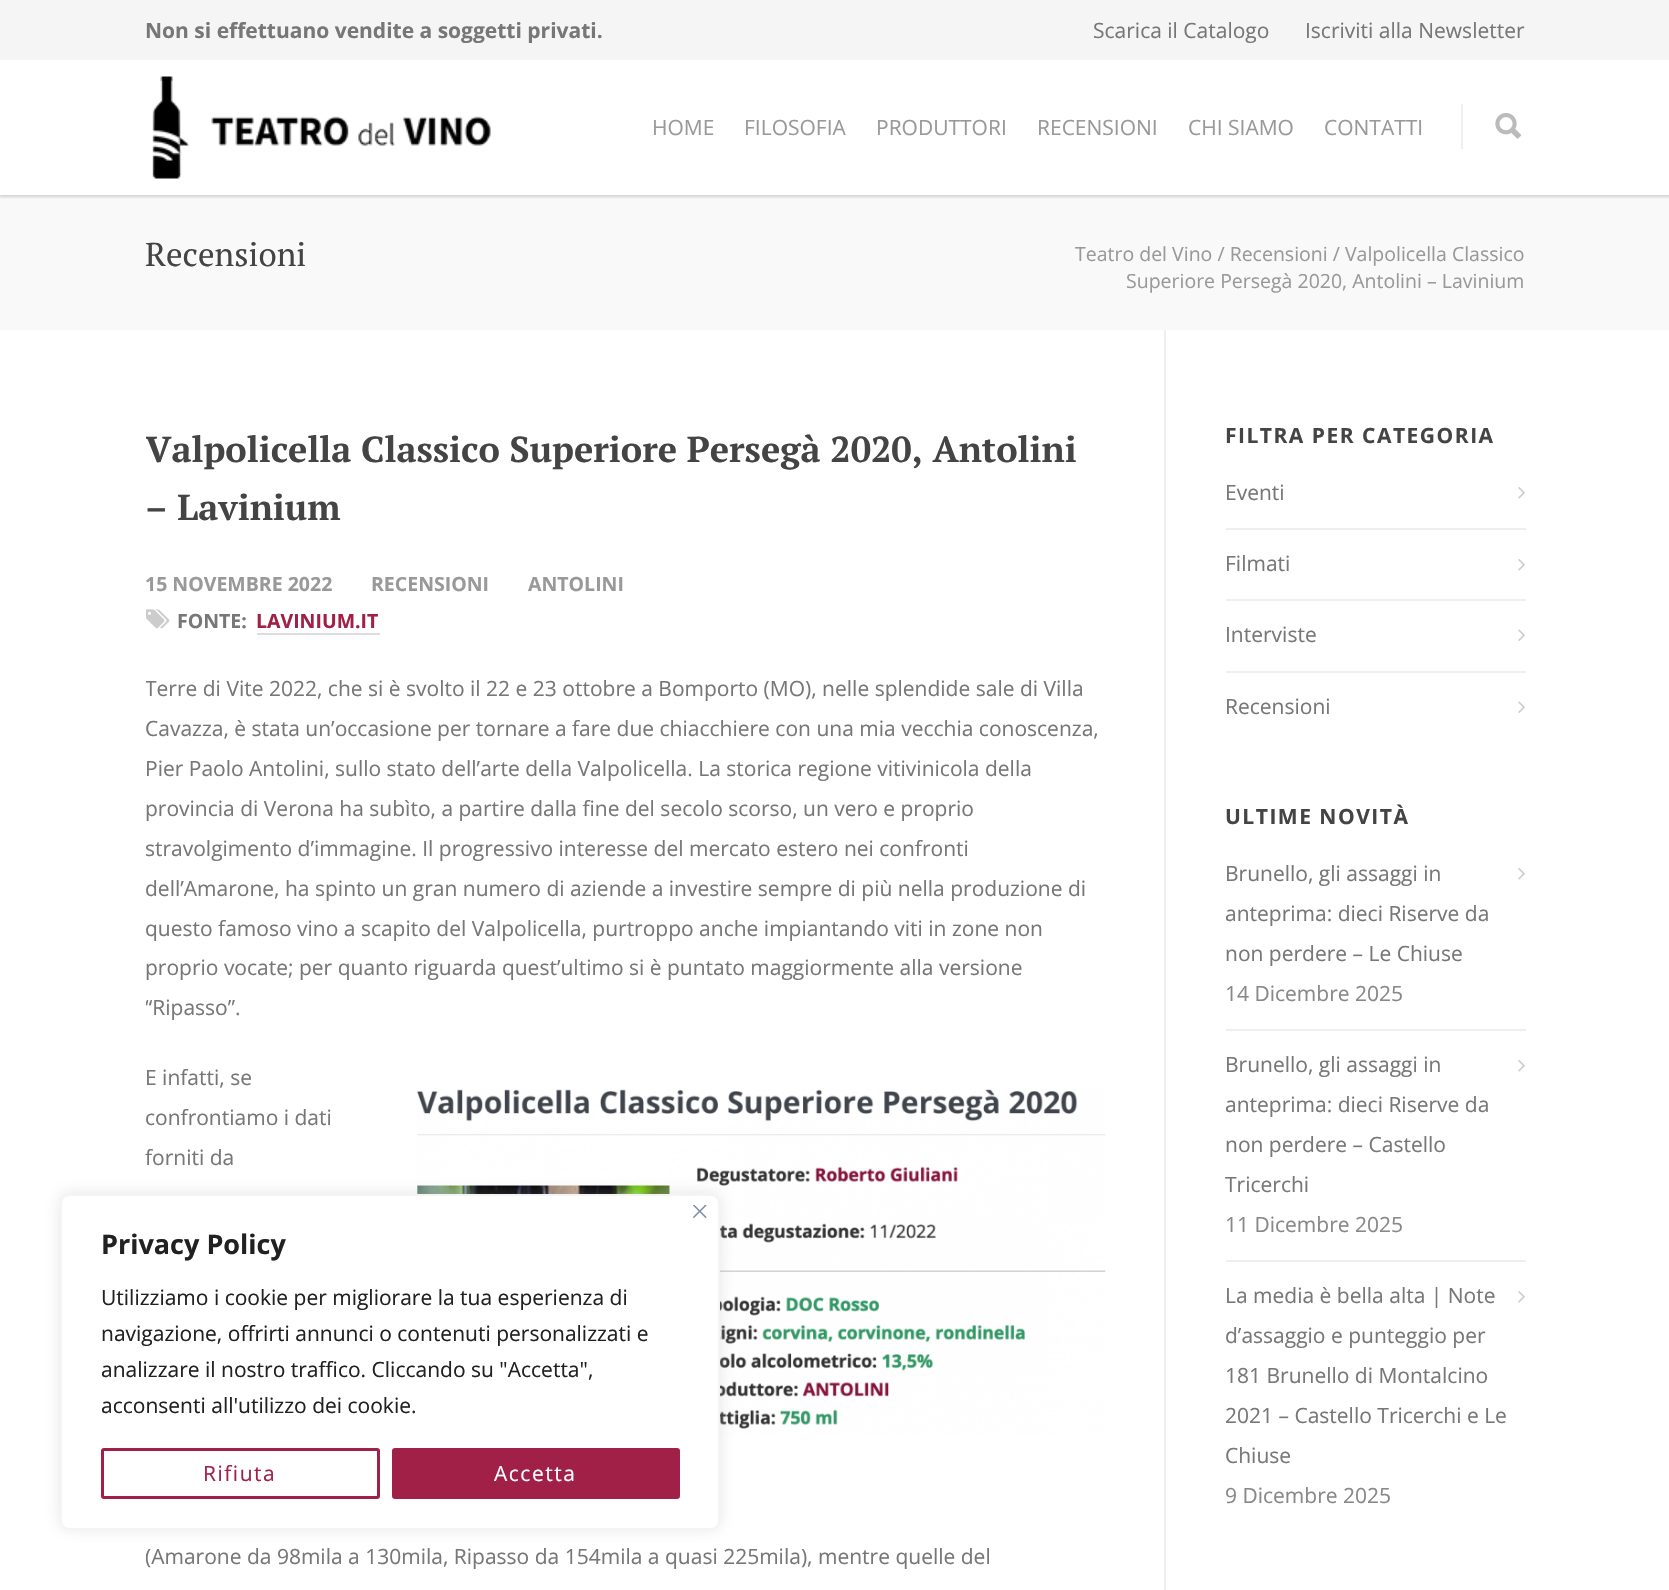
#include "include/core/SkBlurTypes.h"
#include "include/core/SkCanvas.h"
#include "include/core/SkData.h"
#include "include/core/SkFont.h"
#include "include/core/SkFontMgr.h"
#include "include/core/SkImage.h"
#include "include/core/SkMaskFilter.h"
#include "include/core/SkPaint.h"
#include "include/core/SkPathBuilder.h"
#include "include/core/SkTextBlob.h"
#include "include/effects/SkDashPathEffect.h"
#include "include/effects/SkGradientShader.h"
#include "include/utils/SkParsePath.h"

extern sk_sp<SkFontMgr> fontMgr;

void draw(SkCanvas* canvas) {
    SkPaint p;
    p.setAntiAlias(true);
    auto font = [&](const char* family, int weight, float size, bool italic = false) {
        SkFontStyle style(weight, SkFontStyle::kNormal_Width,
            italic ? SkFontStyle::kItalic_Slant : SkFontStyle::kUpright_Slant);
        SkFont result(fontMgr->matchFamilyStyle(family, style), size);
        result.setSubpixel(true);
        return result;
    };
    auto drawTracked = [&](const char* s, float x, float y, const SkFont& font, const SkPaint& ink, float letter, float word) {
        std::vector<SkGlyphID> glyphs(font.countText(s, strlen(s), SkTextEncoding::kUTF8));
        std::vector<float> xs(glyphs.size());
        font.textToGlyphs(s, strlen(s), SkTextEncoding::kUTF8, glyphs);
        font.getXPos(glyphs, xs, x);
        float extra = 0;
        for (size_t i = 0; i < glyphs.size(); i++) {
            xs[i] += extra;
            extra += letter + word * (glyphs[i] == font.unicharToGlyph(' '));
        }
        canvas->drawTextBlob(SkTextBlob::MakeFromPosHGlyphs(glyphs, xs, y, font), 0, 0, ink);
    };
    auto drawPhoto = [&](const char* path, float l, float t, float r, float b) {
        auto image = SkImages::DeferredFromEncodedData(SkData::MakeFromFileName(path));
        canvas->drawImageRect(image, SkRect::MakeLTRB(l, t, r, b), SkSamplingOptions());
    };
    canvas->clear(0xFFFFFFFF);
    p.setColor(0xFFF9F9F9);
    canvas->drawRect(SkRect::MakeLTRB(0, 195, 1669, 330), p);
    canvas->save();
    canvas->clipRect(SkRect::MakeLTRB(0, 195, 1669, 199));
    p.setColor(0x29000000);
    p.setMaskFilter(SkMaskFilter::MakeBlur(kNormal_SkBlurStyle, 1.5f));
    canvas->drawRect(SkRect::MakeLTRB(-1, 59, 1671, 197), p);
    p.setMaskFilter(nullptr);
    canvas->restore();
    p.setColor(0xFFF5F5F5);
    canvas->drawRect(SkRect::MakeLTRB(0, 0, 1669, 60), p);
    auto font1 = font("Open Sans", 700, 21);
    p.setColor(0xFF777777);
    canvas->drawString("Non si effettuano vendite a soggetti privati.", 145, 38, font1, p);
    auto font2 = font("Open Sans", 400, 21);
    canvas->drawString("Scarica il Catalogo", 1093, 38, font2, p);
    canvas->drawString("Iscriviti alla Newsletter", 1305, 38, font2, p);
    drawPhoto("media/1.png", 152, 76, 491, 179);
    p.setColor(0xFF999999);
    {
        const struct { const char* s; float x, y; } items[] = {
            {"HOME", 652, 135},
            {"FILOSOFIA", 744, 135},
            {"PRODUTTORI", 876, 135},
            {"RECENSIONI", 1037, 135},
            {"CHI SIAMO", 1188, 135},
            {"CONTATTI", 1324, 135},
        };
        for (auto [s, x, y] : items) {
            canvas->drawString(s, x, y, font2, p);
        }
    }
    p.setColor(0xFFEFEFEF);
    canvas->drawRect(SkRect::MakeLTRB(1461, 104, 1463, 149), p);
    drawPhoto("media/2.png", 1495, 113, 1522, 139);
    auto font3 = font("PT Serif", 400, 33);
    p.setColor(0xFF444444);
    canvas->drawString("Recensioni", 145, 266, font3, p);
    auto font4 = font("Open Sans", 400, 19.5f);
    p.setColor(0xFF999999);
    canvas->drawString("Teatro del Vino / Recensioni / Valpolicella Classico", 1075, 261, font4, p);
    canvas->drawString("Superiore Persegà 2020, Antolini – Lavinium", 1126, 288, font4, p);
    p.setColor(0xFFEFEFEF);
    canvas->drawRect(SkRect::MakeLTRB(1164, 330, 1166, 1590), p);
    canvas->save();
    canvas->clipRect(SkRect::MakeLTRB(146, 420, 1106, 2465));
    auto font5 = font("PT Serif", 700, 36);
    p.setColor(0xFF444444);
    canvas->drawString("Valpolicella Classico Superiore Persegà 2020, Antolini", 145, 462, font5, p);
    canvas->restore();
    canvas->drawString("– Lavinium", 145, 520, font5, p);
    auto font6 = font("Open Sans", 700, 19.5f);
    p.setColor(0xFF999999);
    {
        const struct { const char* s; float x, y; } items[] = {
            {"15 NOVEMBRE 2022", 145, 591},
            {"RECENSIONI", 371, 591},
            {"ANTOLINI", 528, 591},
        };
        for (auto [s, x, y] : items) {
            canvas->drawString(s, x, y, font6, p);
        }
    }
    drawPhoto("media/3.png", 146, 609, 170, 629);
    p.setColor(0xFF777777);
    canvas->drawString("FONTE:", 177, 628, font6, p);
    p.setColor(0xFFA12047);
    canvas->drawString("LAVINIUM.IT", 256, 628, font6, p);
    p.setColor(0xFFDDDDDD);
    canvas->drawRect(SkRect::MakeLTRB(257, 633, 380, 635), p);
    canvas->save();
    canvas->clipRect(SkRect::MakeLTRB(146, 420, 1106, 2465));
    p.setColor(0xFF777777);
    canvas->drawString("Terre di Vite 2022, che si è svolto il 22 e 23 ottobre a Bomporto (MO), nelle splendide sale di Villa", 145, 696, font2, p);
    canvas->restore();
    {
        const struct { const char* s; float x, y; } items[] = {
            {"Cavazza, è stata un’occasione per tornare a fare due chiacchiere con una mia vecchia conoscenza,", 145, 736},
            {"Pier Paolo Antolini, sullo stato dell’arte della Valpolicella. La storica regione vitivinicola della", 145, 776},
            {"provincia di Verona ha subìto, a partire dalla fine del secolo scorso, un vero e proprio", 145, 816},
        };
        for (auto [s, x, y] : items) {
            canvas->drawString(s, x, y, font2, p);
        }
    }
    canvas->save();
    canvas->clipRect(SkRect::MakeLTRB(146, 420, 1106, 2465));
    canvas->drawString("stravolgimento d’immagine. Il progressivo interesse del mercato estero nei confronti", 145, 856, font2, p);
    canvas->restore();
    {
        const struct { const char* s; float x, y; } items[] = {
            {"dell’Amarone, ha spinto un gran numero di aziende a investire sempre di più nella produzione di", 145, 896},
            {"questo famoso vino a scapito del Valpolicella, purtroppo anche impiantando viti in zone non", 145, 936},
            {"proprio vocate; per quanto riguarda quest’ultimo si è puntato maggiormente alla versione", 145, 975},
        };
        for (auto [s, x, y] : items) {
            canvas->drawString(s, x, y, font2, p);
        }
    }
    canvas->save();
    canvas->clipRect(SkRect::MakeLTRB(146, 420, 1106, 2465));
    canvas->drawString("“Ripasso”.", 145, 1015, font2, p);
    canvas->restore();
    canvas->drawString("E infatti, se", 145, 1085, font2, p);
    canvas->drawString("confrontiamo i dati", 145, 1125, font2, p);
    drawPhoto("media/4.png", 417, 1089, 1106, 1438);
    canvas->drawString("forniti da", 145, 1165, font2, p);
    canvas->save();
    canvas->clipRect(SkRect::MakeLTRB(146, 420, 1106, 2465));
    canvas->drawString("(Amarone da 98mila a 130mila, Ripasso da 154mila a quasi 225mila), mentre quelle del", 145, 1564, font2, p);
    canvas->restore();
    p.setColor(0xFF444444);
    drawTracked("FILTRA PER CATEGORIA", 1225, 443, font1, p, 1.5f, 0);
    p.setColor(0xFFEFEFEF);
    canvas->drawRect(SkRect::MakeLTRB(1226, 528, 1526, 530), p);
    p.setColor(0xFF777777);
    canvas->drawString("Eventi", 1225, 500, font2, p);
    drawPhoto("media/5.png", 1518, 487, 1525, 499);
    p.setColor(0xFFEFEFEF);
    canvas->drawRect(SkRect::MakeLTRB(1226, 599, 1526, 601), p);
    p.setColor(0xFF777777);
    canvas->drawString("Filmati", 1225, 571, font2, p);
    drawPhoto("media/5.png", 1518, 559, 1525, 571);
    p.setColor(0xFFEFEFEF);
    canvas->drawRect(SkRect::MakeLTRB(1226, 671, 1526, 673), p);
    p.setColor(0xFF777777);
    canvas->drawString("Interviste", 1225, 642, font2, p);
    drawPhoto("media/6.png", 1518, 629, 1525, 641);
    canvas->drawString("Recensioni", 1225, 714, font2, p);
    drawPhoto("media/6.png", 1518, 701, 1525, 713);
    p.setColor(0xFF444444);
    drawTracked("ULTIME NOVITÀ", 1225, 824, font1, p, 1.5f, 0);
    p.setColor(0xFFEFEFEF);
    canvas->drawRect(SkRect::MakeLTRB(1226, 1029, 1526, 1031), p);
    p.setColor(0xFF777777);
    {
        const struct { const char* s; float x, y; } items[] = {
            {"Brunello, gli assaggi in", 1225, 881},
            {"anteprima: dieci Riserve da", 1225, 921},
            {"non perdere – Le Chiuse", 1225, 961},
        };
        for (auto [s, x, y] : items) {
            canvas->drawString(s, x, y, font2, p);
        }
    }
    drawPhoto("media/5.png", 1518, 868, 1525, 880);
    p.setColor(0xFF888888);
    canvas->drawString("14 Dicembre 2025", 1225, 1001, font2, p);
    p.setColor(0xFFEFEFEF);
    canvas->drawRect(SkRect::MakeLTRB(1226, 1260, 1526, 1262), p);
    p.setColor(0xFF777777);
    {
        const struct { const char* s; float x, y; } items[] = {
            {"Brunello, gli assaggi in", 1225, 1072},
            {"anteprima: dieci Riserve da", 1225, 1112},
            {"non perdere – Castello", 1225, 1152},
            {"Tricerchi", 1225, 1192},
        };
        for (auto [s, x, y] : items) {
            canvas->drawString(s, x, y, font2, p);
        }
    }
    drawPhoto("media/5.png", 1518, 1060, 1525, 1072);
    p.setColor(0xFF888888);
    canvas->drawString("11 Dicembre 2025", 1225, 1232, font2, p);
    p.setColor(0xFF777777);
    {
        const struct { const char* s; float x, y; } items[] = {
            {"La media è bella alta | Note", 1225, 1303},
            {"d’assaggio e punteggio per", 1225, 1343},
            {"181 Brunello di Montalcino", 1225, 1383},
            {"2021 – Castello Tricerchi e Le", 1225, 1423},
            {"Chiuse", 1225, 1463},
        };
        for (auto [s, x, y] : items) {
            canvas->drawString(s, x, y, font2, p);
        }
    }
    drawPhoto("media/5.png", 1518, 1291, 1525, 1303);
    p.setColor(0xFF888888);
    canvas->drawString("9 Dicembre 2025", 1225, 1503, font2, p);
    p.setColor(0x4DACABAB);
    p.setMaskFilter(SkMaskFilter::MakeBlur(kNormal_SkBlurStyle, 7.5f));
    canvas->drawRoundRect(SkRect::MakeLTRB(60, 1193, 720, 1529), 9, 9, p);
    p.setMaskFilter(nullptr);
    p.setColor(0xFFFFFFFF);
    canvas->drawRoundRect(SkRect::MakeLTRB(61, 1195, 719, 1529), 8, 8, p);
    p.setStyle(SkPaint::kStroke_Style);
    p.setStrokeWidth(2);
    p.setColor(0xFFF4F4F4);
    canvas->drawRoundRect(SkRect::MakeLTRB(61, 1195, 719, 1529), 8, 8, p);
    drawPhoto("media/7.png", 693, 1205, 707, 1218);
    auto font7 = font("Open Sans", 700, 27);
    p.setStyle(SkPaint::kFill_Style);
    p.setColor(0xFF212121);
    canvas->drawString("Privacy Policy", 101, 1254, font7, p);
    {
        const struct { const char* s; float x, y; } items[] = {
            {"Utilizziamo i cookie per migliorare la tua esperienza di", 101, 1305},
            {"navigazione, offrirti annunci o contenuti personalizzati e", 101, 1341},
            {"analizzare il nostro traffico. Cliccando su \"Accetta\",", 101, 1377},
            {"acconsenti all'utilizzo dei cookie.", 101, 1413},
        };
        for (auto [s, x, y] : items) {
            canvas->drawString(s, x, y, font2, p);
        }
    }
    p.setStyle(SkPaint::kStroke_Style);
    p.setStrokeWidth(3);
    p.setColor(0xFFA12047);
    canvas->drawRoundRect(SkRect::MakeLTRB(102.5f, 1449.5f, 378.5f, 1497.5f), 1.5f, 1.5f, p);
    p.setStyle(SkPaint::kFill_Style);
    drawTracked("Rifiuta", 203, 1481, font2, p, 1.5f, 0);
    canvas->drawRoundRect(SkRect::MakeLTRB(393.5f, 1449.5f, 678.5f, 1497.5f), 1.5f, 1.5f, p);
    p.setStyle(SkPaint::kStroke_Style);
    canvas->drawRoundRect(SkRect::MakeLTRB(393.5f, 1449.5f, 678.5f, 1497.5f), 1.5f, 1.5f, p);
    p.setStyle(SkPaint::kFill_Style);
    p.setColor(0xFFFFFFFF);
    drawTracked("Accetta", 494, 1481, font2, p, 1.5f, 0);
}
